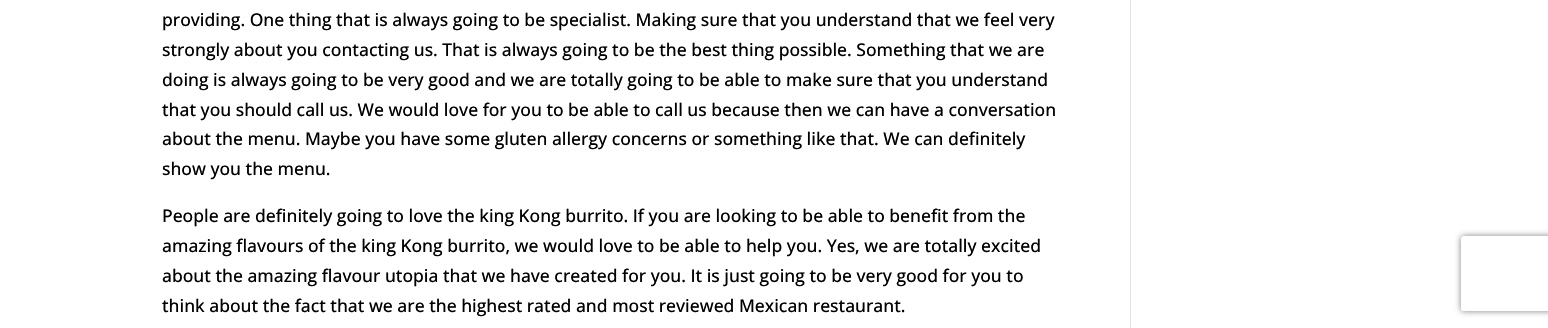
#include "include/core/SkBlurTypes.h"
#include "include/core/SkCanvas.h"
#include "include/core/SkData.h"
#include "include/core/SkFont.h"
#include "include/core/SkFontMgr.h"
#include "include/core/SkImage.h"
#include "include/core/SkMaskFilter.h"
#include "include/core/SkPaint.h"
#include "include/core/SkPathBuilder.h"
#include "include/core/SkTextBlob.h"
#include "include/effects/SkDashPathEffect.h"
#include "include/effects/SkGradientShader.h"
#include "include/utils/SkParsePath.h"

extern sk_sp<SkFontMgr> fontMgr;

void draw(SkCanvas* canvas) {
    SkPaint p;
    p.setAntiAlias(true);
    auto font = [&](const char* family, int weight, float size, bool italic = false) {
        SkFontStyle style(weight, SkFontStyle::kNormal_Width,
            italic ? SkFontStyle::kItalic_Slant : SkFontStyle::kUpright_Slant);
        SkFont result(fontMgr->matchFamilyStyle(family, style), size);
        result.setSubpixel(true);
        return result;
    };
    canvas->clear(0xFFFFFFFF);
    auto font1 = font("Open Sans", 500, 17.5f);
    p.setColor(0xFF000000);
    {
        const struct { const char* s; float x, y; } items[] = {
            {"providing. One thing that is always going to be specialist. Making sure that you understand that we feel very", 162, 26},
            {"strongly about you contacting us. That is always going to be the best thing possible. Something that we are", 162, 56},
            {"doing is always going to be very good and we are totally going to be able to make sure that you understand", 162, 86},
            {"that you should call us. We would love for you to be able to call us because then we can have a conversation", 162, 116},
            {"about the menu. Maybe you have some gluten allergy concerns or something like that. We can definitely", 162, 145},
            {"show you the menu.", 162, 175},
            {"People are definitely going to love the king Kong burrito. If you are looking to be able to benefit from the", 162, 222},
            {"amazing flavours of the king Kong burrito, we would love to be able to help you. Yes, we are totally excited", 162, 252},
            {"about the amazing flavour utopia that we have created for you. It is just going to be very good for you to", 162, 282},
            {"think about the fact that we are the highest rated and most reviewed Mexican restaurant.", 162, 312},
        };
        for (auto [s, x, y] : items) {
            canvas->drawString(s, x, y, font1, p);
        }
    }
    p.setColor(0xFFE2E2E2);
    canvas->drawRect(SkRect::MakeLTRB(1130, 0, 1131, 328), p);
    canvas->save();
    canvas->clipPath(SkPathBuilder(SkPathFillType::kEvenOdd).moveTo(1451, 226).lineTo(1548, 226).lineTo(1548, 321).lineTo(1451, 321).close().moveTo(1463.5f, 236).lineTo(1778.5f, 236).cubicTo(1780, 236, 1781, 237, 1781, 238.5f).lineTo(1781, 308.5f).cubicTo(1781, 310, 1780, 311, 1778.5f, 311).lineTo(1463.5f, 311).cubicTo(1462, 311, 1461, 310, 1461, 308.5f).lineTo(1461, 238.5f).cubicTo(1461, 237, 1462, 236, 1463.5f, 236).close().detach(), true);
    p.setColor(0xFF808080);
    p.setMaskFilter(SkMaskFilter::MakeBlur(kNormal_SkBlurStyle, 3));
    canvas->drawRoundRect(SkRect::MakeLTRB(1461, 236, 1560, 311), 2.5f, 2.5f, p);
    p.setMaskFilter(nullptr);
    canvas->restore();
}
